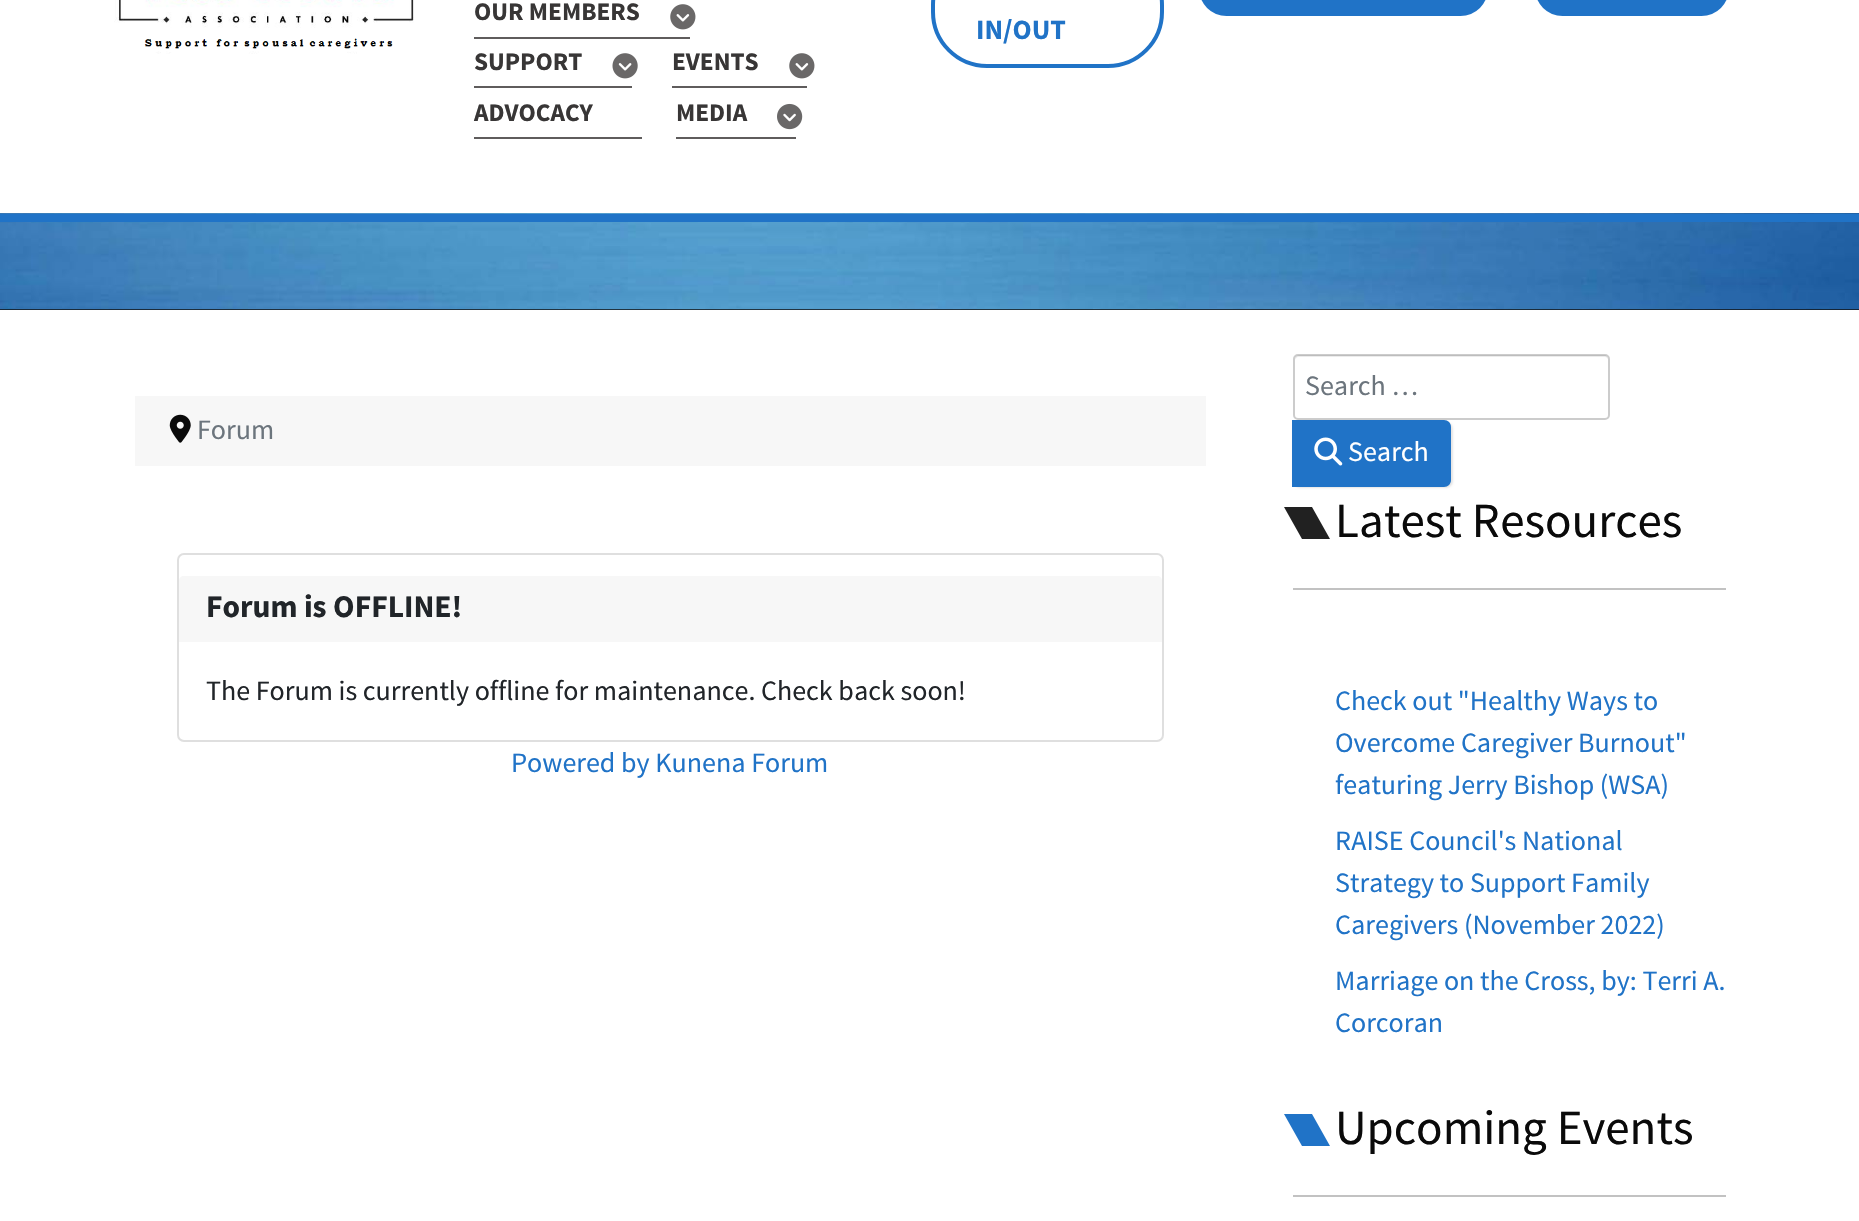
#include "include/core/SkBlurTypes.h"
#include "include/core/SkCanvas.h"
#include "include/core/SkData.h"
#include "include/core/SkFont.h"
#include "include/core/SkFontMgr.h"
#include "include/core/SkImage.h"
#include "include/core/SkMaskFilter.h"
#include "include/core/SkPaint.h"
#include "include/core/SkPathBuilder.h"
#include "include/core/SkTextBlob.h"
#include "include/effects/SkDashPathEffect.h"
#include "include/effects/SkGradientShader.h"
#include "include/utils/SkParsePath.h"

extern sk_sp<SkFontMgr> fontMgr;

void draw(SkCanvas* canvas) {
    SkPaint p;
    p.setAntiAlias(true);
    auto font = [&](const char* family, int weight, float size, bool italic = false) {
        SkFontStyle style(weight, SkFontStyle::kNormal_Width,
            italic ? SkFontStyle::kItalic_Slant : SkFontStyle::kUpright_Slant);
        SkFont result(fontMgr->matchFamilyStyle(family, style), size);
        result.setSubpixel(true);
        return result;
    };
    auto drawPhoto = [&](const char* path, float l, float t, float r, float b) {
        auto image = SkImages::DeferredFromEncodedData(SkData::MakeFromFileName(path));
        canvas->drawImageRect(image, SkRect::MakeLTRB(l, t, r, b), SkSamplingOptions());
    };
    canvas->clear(0xFFFFFFFF);
    p.setColor(0xFF2073C7);
    canvas->drawRoundRect(SkRect::MakeLTRB(1199, -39, 1488, 16), 38.5f, 38.5f, p);
    canvas->drawRoundRect(SkRect::MakeLTRB(1535, -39, 1729, 16), 38.5f, 38.5f, p);
    drawPhoto("media/1.png", 114, 0, 414, 54);
    auto font1 = font("Source Sans Pro", 700, 25.25f);
    p.setColor(0xFF383636);
    canvas->drawString("OUR MEMBERS", 474, 20, font1, p);
    p.setColor(0xFF5F5C5C);
    canvas->drawRect(SkRect::MakeLTRB(474, 37, 690, 39), p);
    drawPhoto("media/2.png", 670, 4, 696, 30);
    p.setColor(0xFF383636);
    canvas->drawString("SUPPORT", 474, 70, font1, p);
    p.setColor(0xFF5F5C5C);
    canvas->drawRect(SkRect::MakeLTRB(474, 86, 632, 88), p);
    drawPhoto("media/3.png", 612, 53, 638, 79);
    p.setColor(0xFF383636);
    canvas->drawString("EVENTS", 672, 70, font1, p);
    p.setColor(0xFF5F5C5C);
    canvas->drawRect(SkRect::MakeLTRB(672, 86, 807, 88), p);
    drawPhoto("media/2.png", 789, 53, 815, 79);
    p.setColor(0xFF383636);
    canvas->drawString("ADVOCACY", 474, 121, font1, p);
    p.setColor(0xFF5F5C5C);
    canvas->drawRect(SkRect::MakeLTRB(474, 137, 642, 139), p);
    p.setColor(0xFF383636);
    canvas->drawString("MEDIA", 676, 121, font1, p);
    p.setColor(0xFF5F5C5C);
    canvas->drawRect(SkRect::MakeLTRB(676, 137, 796, 139), p);
    drawPhoto("media/4.png", 777, 103, 803, 130);
    p.setStyle(SkPaint::kStroke_Style);
    p.setStrokeWidth(4);
    p.setColor(0xFF2073C7);
    canvas->drawRoundRect(SkRect::MakeLTRB(933, -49, 1162, 66), 54, 54, p);
    auto font2 = font("Source Sans Pro", 700, 28);
    p.setStyle(SkPaint::kFill_Style);
    canvas->drawString("IN/OUT", 976, 39, font2, p);
    p.setColor(0xFF111111);
    canvas->drawRect(SkRect::MakeLTRB(0, 309, 1859, 310), p);
    drawPhoto("media/5.png", 0, 213, 1859, 310);
    p.setColor(0xFF2073C7);
    canvas->drawRect(SkRect::MakeLTRB(0, 214, 1859, 222), p);
    p.setColor(0xFFF7F7F7);
    canvas->drawRect(SkRect::MakeLTRB(135, 396, 1206, 466), p);
    drawPhoto("media/6.png", 169, 414, 191, 443);
    auto font3 = font("Source Sans Pro", 400, 28);
    p.setColor(0xFF6C757D);
    canvas->drawString("Forum", 197, 439, font3, p);
    p.setStyle(SkPaint::kStroke_Style);
    p.setStrokeWidth(2);
    p.setColor(0xFFDFDFDF);
    canvas->drawRoundRect(SkRect::MakeLTRB(178, 554, 1163, 741), 6, 6, p);
    p.setStyle(SkPaint::kFill_Style);
    p.setColor(0xFFF7F7F7);
    canvas->drawPath(SkPathBuilder().moveTo(184, 576).lineTo(1157, 576).cubicTo(1160, 576, 1162, 578, 1162, 581).lineTo(1162, 642).lineTo(179, 642).lineTo(179, 581).cubicTo(179, 578, 181, 576, 184, 576).close().detach(), p);
    auto font4 = font("Source Sans Pro", 700, 31.5f);
    p.setColor(0xFF212529);
    canvas->drawString("Forum is OFFLINE!", 206, 617, font4, p);
    canvas->drawString("The Forum is currently offline for maintenance. Check back soon!", 206, 700, font3, p);
    p.setColor(0xFF2073C7);
    canvas->drawString("Powered by Kunena Forum", 511, 772, font3, p);
    p.setColor(0xFFECECEC);
    canvas->drawPath(SkPathBuilder().moveTo(1298, 357).lineTo(1605, 357).cubicTo(1607, 357, 1608, 359, 1608, 360).cubicTo(1608, 357, 1607, 355, 1604, 355).lineTo(1299, 355).lineTo(1296, 356).cubicTo(1295, 357, 1295, 359, 1295, 360).cubicTo(1295, 359, 1297, 357, 1298, 357).close().detach(), p);
    p.setStyle(SkPaint::kStroke_Style);
    p.setColor(0x33000000);
    canvas->drawRoundRect(SkRect::MakeLTRB(1294, 355, 1609, 419), 4, 4, p);
    p.setStyle(SkPaint::kFill_Style);
    p.setColor(0xFF6C757D);
    canvas->drawString("Search …", 1305, 395, font3, p);
    p.setColor(0x1A000000);
    p.setMaskFilter(SkMaskFilter::MakeBlur(kNormal_SkBlurStyle, 1));
    canvas->drawRoundRect(SkRect::MakeLTRB(1293, 422, 1453, 488), 7, 7, p);
    p.setMaskFilter(nullptr);
    p.setColor(0xFF2073C7);
    canvas->drawPath(SkPathBuilder().moveTo(1292, 420).lineTo(1444, 420).cubicTo(1448, 420, 1451, 423, 1451, 427).lineTo(1451, 480).cubicTo(1451, 484, 1448, 487, 1444, 487).lineTo(1292, 487).close().detach(), p);
    drawPhoto("media/7.png", 1314, 437, 1343, 466);
    p.setColor(0xFFFFFFFF);
    canvas->drawString("Search", 1348, 461, font3, p);
    p.setColor(0xFFC2C2C2);
    canvas->drawRect(SkRect::MakeLTRB(1293, 588, 1726, 590), p);
    p.setColor(0xFF212121);
    canvas->drawPath(SkPathBuilder().moveTo(1284, 507).lineTo(1312, 507).lineTo(1330, 539).lineTo(1302, 539).close().detach(), p);
    auto font5 = font("Source Sans Pro", 400, 49);
    p.setColor(0xFF0A0A0A);
    canvas->drawString("Latest Resources", 1335, 537, font5, p);
    p.setColor(0xFF2073C7);
    {
        const struct { const char* s; float x, y; } items[] = {
            {"Check out \"Healthy Ways to", 1335, 710},
            {"Overcome Caregiver Burnout\"", 1335, 752},
            {"featuring Jerry Bishop (WSA)", 1335, 794},
            {"RAISE Council's National", 1335, 850},
            {"Strategy to Support Family", 1335, 892},
            {"Caregivers (November 2022)", 1335, 934},
            {"Marriage on the Cross, by: Terri A.", 1335, 990},
            {"Corcoran", 1335, 1032},
        };
        for (auto [s, x, y] : items) {
            canvas->drawString(s, x, y, font3, p);
        }
    }
    p.setColor(0xFFC2C2C2);
    canvas->drawRect(SkRect::MakeLTRB(1293, 1195, 1726, 1197), p);
    p.setColor(0xFF2073C7);
    canvas->drawPath(SkPathBuilder().moveTo(1284, 1114).lineTo(1312, 1114).lineTo(1330, 1146).lineTo(1302, 1146).close().detach(), p);
    p.setColor(0xFF0A0A0A);
    canvas->drawString("Upcoming Events", 1335, 1144, font5, p);
}
